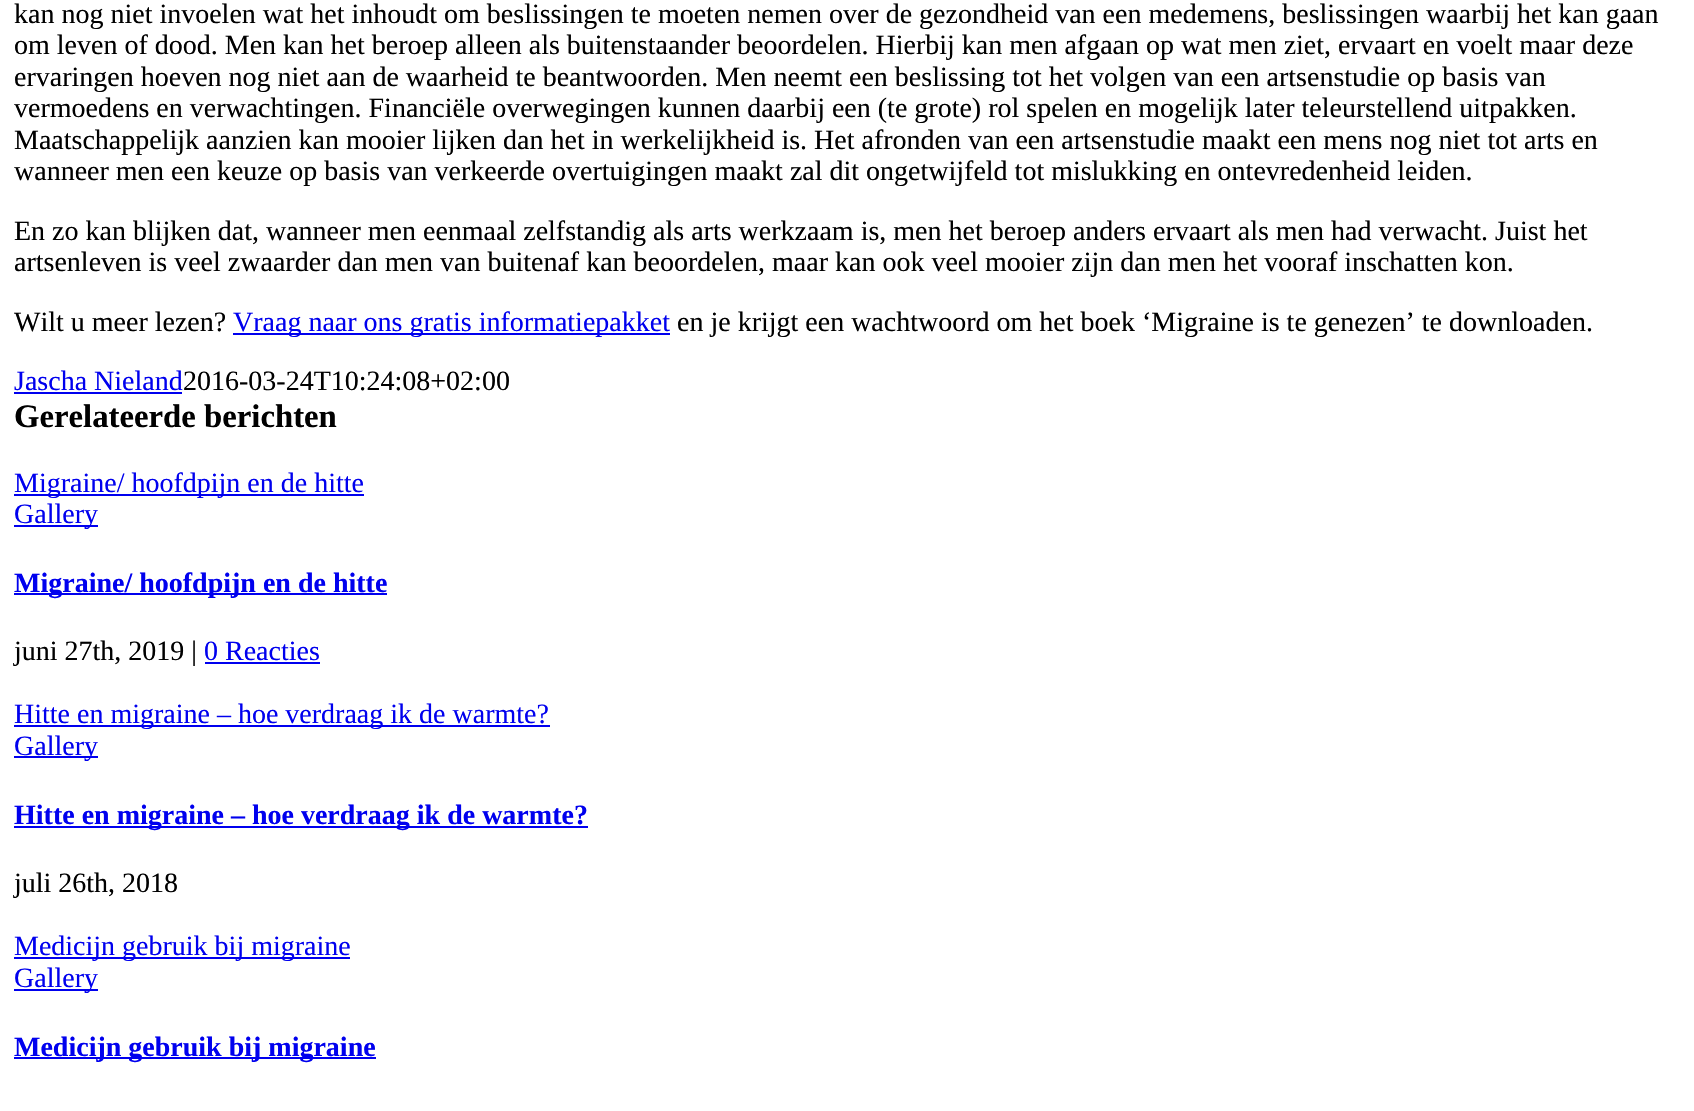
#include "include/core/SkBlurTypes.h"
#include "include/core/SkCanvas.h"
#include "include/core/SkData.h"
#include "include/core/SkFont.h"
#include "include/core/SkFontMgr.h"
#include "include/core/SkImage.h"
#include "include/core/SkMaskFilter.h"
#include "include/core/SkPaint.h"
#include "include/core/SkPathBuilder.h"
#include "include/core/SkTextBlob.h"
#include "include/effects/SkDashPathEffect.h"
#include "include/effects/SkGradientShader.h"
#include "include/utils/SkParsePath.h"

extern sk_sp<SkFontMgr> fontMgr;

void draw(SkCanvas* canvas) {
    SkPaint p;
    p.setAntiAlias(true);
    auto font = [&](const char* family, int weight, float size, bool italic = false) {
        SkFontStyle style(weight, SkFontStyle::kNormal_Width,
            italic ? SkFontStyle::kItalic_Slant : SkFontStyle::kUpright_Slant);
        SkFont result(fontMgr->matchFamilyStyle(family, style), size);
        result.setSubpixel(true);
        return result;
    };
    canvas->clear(0xFFFFFFFF);
    auto font1 = font("Liberation Serif", 400, 28);
    p.setColor(0xFF000000);
    {
        const struct { const char* s; float x, y; } items[] = {
            {"kan nog niet invoelen wat het inhoudt om beslissingen te moeten nemen over de gezondheid van een medemens, beslissingen waarbij het kan gaan", 14, 23},
            {"om leven of dood. Men kan het beroep alleen als buitenstaander beoordelen. Hierbij kan men afgaan op wat men ziet, ervaart en voelt maar deze", 14, 54},
            {"ervaringen hoeven nog niet aan de waarheid te beantwoorden. Men neemt een beslissing tot het volgen van een artsenstudie op basis van", 14, 86},
            {"vermoedens en verwachtingen. Financiële overwegingen kunnen daarbij een (te grote) rol spelen en mogelijk later teleurstellend uitpakken.", 14, 117},
            {"Maatschappelijk aanzien kan mooier lijken dan het in werkelijkheid is. Het afronden van een artsenstudie maakt een mens nog niet tot arts en", 14, 149},
            {"wanneer men een keuze op basis van verkeerde overtuigingen maakt zal dit ongetwijfeld tot mislukking en ontevredenheid leiden.", 14, 180},
            {"En zo kan blijken dat, wanneer men eenmaal zelfstandig als arts werkzaam is, men het beroep anders ervaart als men had verwacht. Juist het", 14, 240},
            {"artsenleven is veel zwaarder dan men van buitenaf kan beoordelen, maar kan ook veel mooier zijn dan men het vooraf inschatten kon.", 14, 271},
            {"Wilt u meer lezen?", 14, 331},
        };
        for (auto [s, x, y] : items) {
            canvas->drawString(s, x, y, font1, p);
        }
    }
    p.setColor(0xFF0000EE);
    canvas->drawRect(SkRect::MakeLTRB(233, 333, 670, 335), p);
    canvas->drawString("Vraag naar ons gratis informatiepakket", 233, 331, font1, p);
    p.setColor(0xFF000000);
    canvas->drawString("en je krijgt een wachtwoord om het boek ‘Migraine is te genezen’ te downloaden.", 677, 331, font1, p);
    p.setColor(0xFF0000EE);
    canvas->drawString("Jascha Nieland", 14, 390, font1, p);
    canvas->drawRect(SkRect::MakeLTRB(14, 392, 182, 394), p);
    p.setColor(0xFF000000);
    canvas->drawString("2016-03-24T10:24:08+02:00", 183, 390, font1, p);
    auto font2 = font("Liberation Serif", 700, 32.75f);
    canvas->drawString("Gerelateerde berichten", 14, 427, font2, p);
    p.setColor(0xFF0000EE);
    canvas->drawRect(SkRect::MakeLTRB(14, 494, 364, 496), p);
    canvas->drawString("Migraine/ hoofdpijn en de hitte", 14, 492, font1, p);
    canvas->drawRect(SkRect::MakeLTRB(14, 525, 98, 527), p);
    canvas->drawString("Gallery", 14, 523, font1, p);
    canvas->drawRect(SkRect::MakeLTRB(14, 593, 387, 595), p);
    auto font3 = font("Liberation Serif", 700, 28);
    canvas->drawString("Migraine/ hoofdpijn en de hitte", 14, 592, font3, p);
    p.setColor(0xFF000000);
    canvas->drawString("juni 27th, 2019 |", 14, 660, font1, p);
    p.setColor(0xFF0000EE);
    canvas->drawString("0 Reacties", 204, 660, font1, p);
    canvas->drawRect(SkRect::MakeLTRB(205, 662, 320, 664), p);
    canvas->drawRect(SkRect::MakeLTRB(14, 725, 550, 727), p);
    canvas->drawString("Hitte en migraine – hoe verdraag ik de warmte?", 14, 723, font1, p);
    canvas->drawRect(SkRect::MakeLTRB(14, 756, 98, 758), p);
    canvas->drawString("Gallery", 14, 755, font1, p);
    canvas->drawRect(SkRect::MakeLTRB(14, 826, 588, 828), p);
    canvas->drawString("Hitte en migraine – hoe verdraag ik de warmte?", 14, 824, font3, p);
    p.setColor(0xFF000000);
    canvas->drawString("juli 26th, 2018", 14, 892, font1, p);
    p.setColor(0xFF0000EE);
    canvas->drawRect(SkRect::MakeLTRB(14, 957, 350, 959), p);
    canvas->drawString("Medicijn gebruik bij migraine", 14, 955, font1, p);
    canvas->drawRect(SkRect::MakeLTRB(14, 989, 98, 991), p);
    canvas->drawString("Gallery", 14, 987, font1, p);
    canvas->drawRect(SkRect::MakeLTRB(14, 1057, 376, 1059), p);
    canvas->drawString("Medicijn gebruik bij migraine", 14, 1056, font3, p);
}
